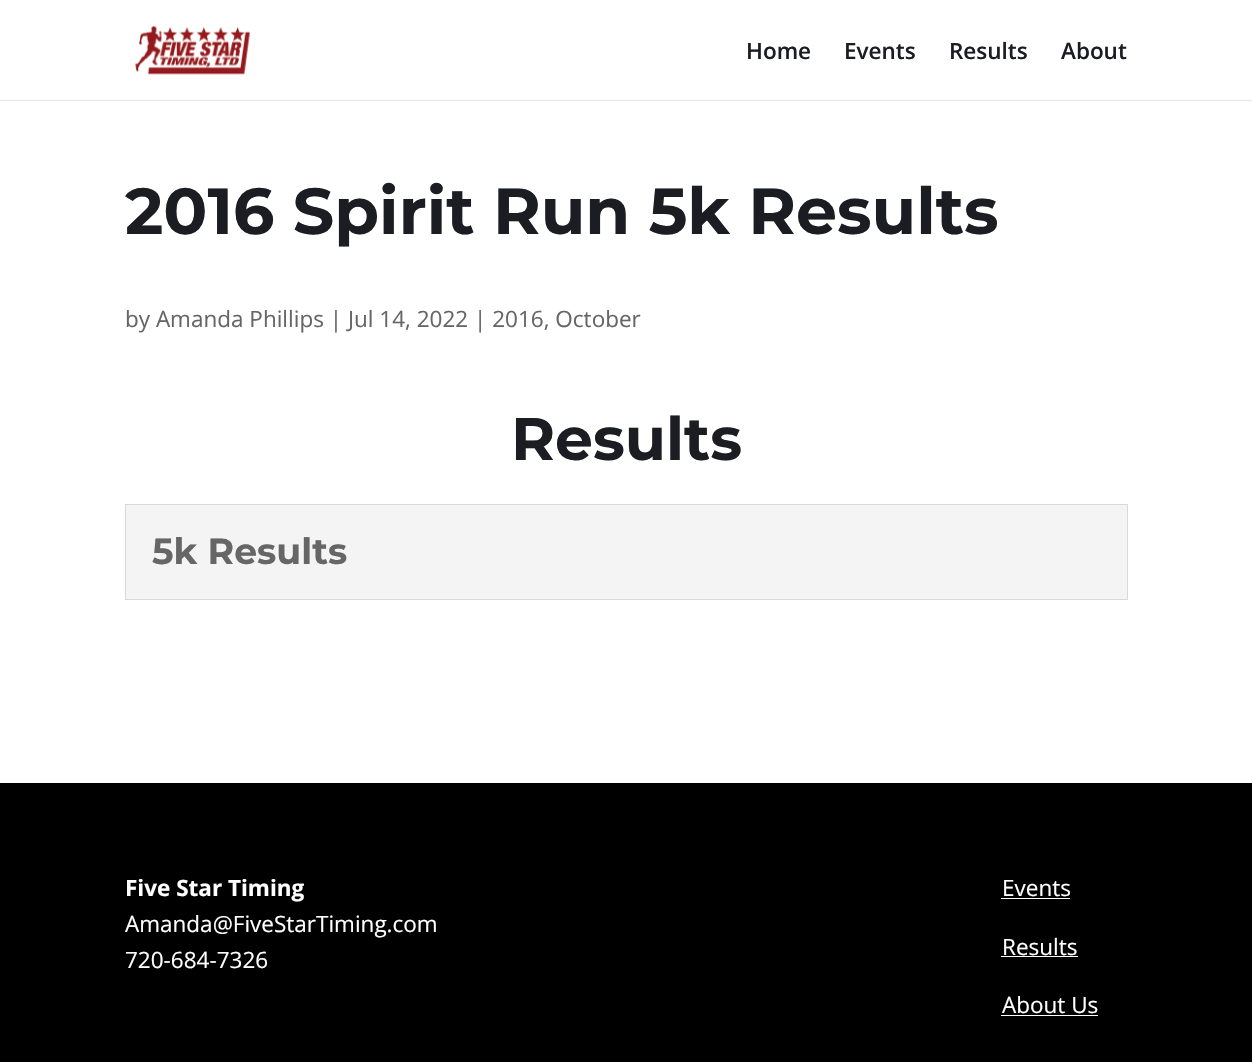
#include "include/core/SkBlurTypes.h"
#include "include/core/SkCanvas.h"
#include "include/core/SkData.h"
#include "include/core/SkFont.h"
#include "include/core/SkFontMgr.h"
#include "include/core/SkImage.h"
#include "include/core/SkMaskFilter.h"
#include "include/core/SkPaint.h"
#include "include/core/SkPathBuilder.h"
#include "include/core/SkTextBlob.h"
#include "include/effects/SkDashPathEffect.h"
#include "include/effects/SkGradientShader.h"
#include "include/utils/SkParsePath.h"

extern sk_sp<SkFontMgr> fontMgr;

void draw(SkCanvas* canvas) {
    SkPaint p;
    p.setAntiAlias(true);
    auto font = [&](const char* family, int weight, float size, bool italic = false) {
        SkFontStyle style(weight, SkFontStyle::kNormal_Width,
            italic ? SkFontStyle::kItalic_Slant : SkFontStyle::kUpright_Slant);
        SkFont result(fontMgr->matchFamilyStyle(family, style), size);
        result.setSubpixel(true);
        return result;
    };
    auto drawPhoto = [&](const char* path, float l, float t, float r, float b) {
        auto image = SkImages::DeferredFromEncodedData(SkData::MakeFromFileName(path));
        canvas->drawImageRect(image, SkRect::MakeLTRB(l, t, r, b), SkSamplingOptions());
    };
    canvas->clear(0xFFFFFFFF);
    p.setColor(0xFFE6E6E6);
    canvas->drawPath(SkPathBuilder().moveTo(0, 100).lineTo(0, 101).lineTo(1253, 101).lineTo(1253, 1).lineTo(1252, 1).lineTo(1252, 100).close().detach(), p);
    drawPhoto("media/1.png", 135, 25, 250, 75);
    auto font1 = font("Open Sans", 600, 22.5f);
    p.setColor(0xFF1C1D23);
    {
        const struct { const char* s; float x, y; } items[] = {
            {"Home", 746, 59},
            {"Events", 844, 59},
            {"Results", 949, 59},
            {"About", 1061, 59},
        };
        for (auto [s, x, y] : items) {
            canvas->drawString(s, x, y, font1, p);
        }
    }
    auto font2 = font("Montserrat", 100, 65);
    canvas->drawString("2016 Spirit Run 5k Results", 125, 234, font2, p);
    auto font3 = font("Open Sans", 400, 22.5f);
    p.setColor(0xFF666666);
    canvas->drawString("by Amanda Phillips | Jul 14, 2022 | 2016, October", 125, 327, font3, p);
    auto font4 = font("Montserrat", 100, 60);
    p.setColor(0xFF1C1D23);
    canvas->drawString("Results", 511, 460, font4, p);
    p.setColor(0xFFF4F4F4);
    canvas->drawRect(SkRect::MakeLTRB(125.5f, 504.5f, 1127.5f, 599.5f), p);
    p.setStyle(SkPaint::kStroke_Style);
    p.setStrokeWidth(1);
    p.setColor(0xFFD9D9D9);
    canvas->drawRect(SkRect::MakeLTRB(125.5f, 504.5f, 1127.5f, 599.5f), p);
    auto font5 = font("Montserrat", 100, 36.25f);
    p.setStyle(SkPaint::kFill_Style);
    p.setColor(0xFF666666);
    canvas->drawString("5k Results", 152, 564, font5, p);
    p.setColor(0xFF000000);
    canvas->drawRect(SkRect::MakeLTRB(0, 783, 1252, 1062), p);
    auto font6 = font("Open Sans", 700, 22.5f);
    p.setColor(0xFFFFFFFF);
    canvas->drawString("Five Star Timing", 125, 896, font6, p);
    {
        const struct { const char* s; float x, y; } items[] = {
            {"Amanda@FiveStarTiming.com", 125, 932},
            {"720-684-7326", 125, 968},
            {"Events", 1002, 896},
        };
        for (auto [s, x, y] : items) {
            canvas->drawString(s, x, y, font3, p);
        }
    }
    canvas->drawRect(SkRect::MakeLTRB(1001, 898, 1070, 899), p);
    canvas->drawString("Results", 1002, 955, font3, p);
    canvas->drawRect(SkRect::MakeLTRB(1001, 956, 1078, 957), p);
    canvas->drawString("About Us", 1002, 1013, font3, p);
    canvas->drawRect(SkRect::MakeLTRB(1001, 1015, 1098, 1016), p);
}
